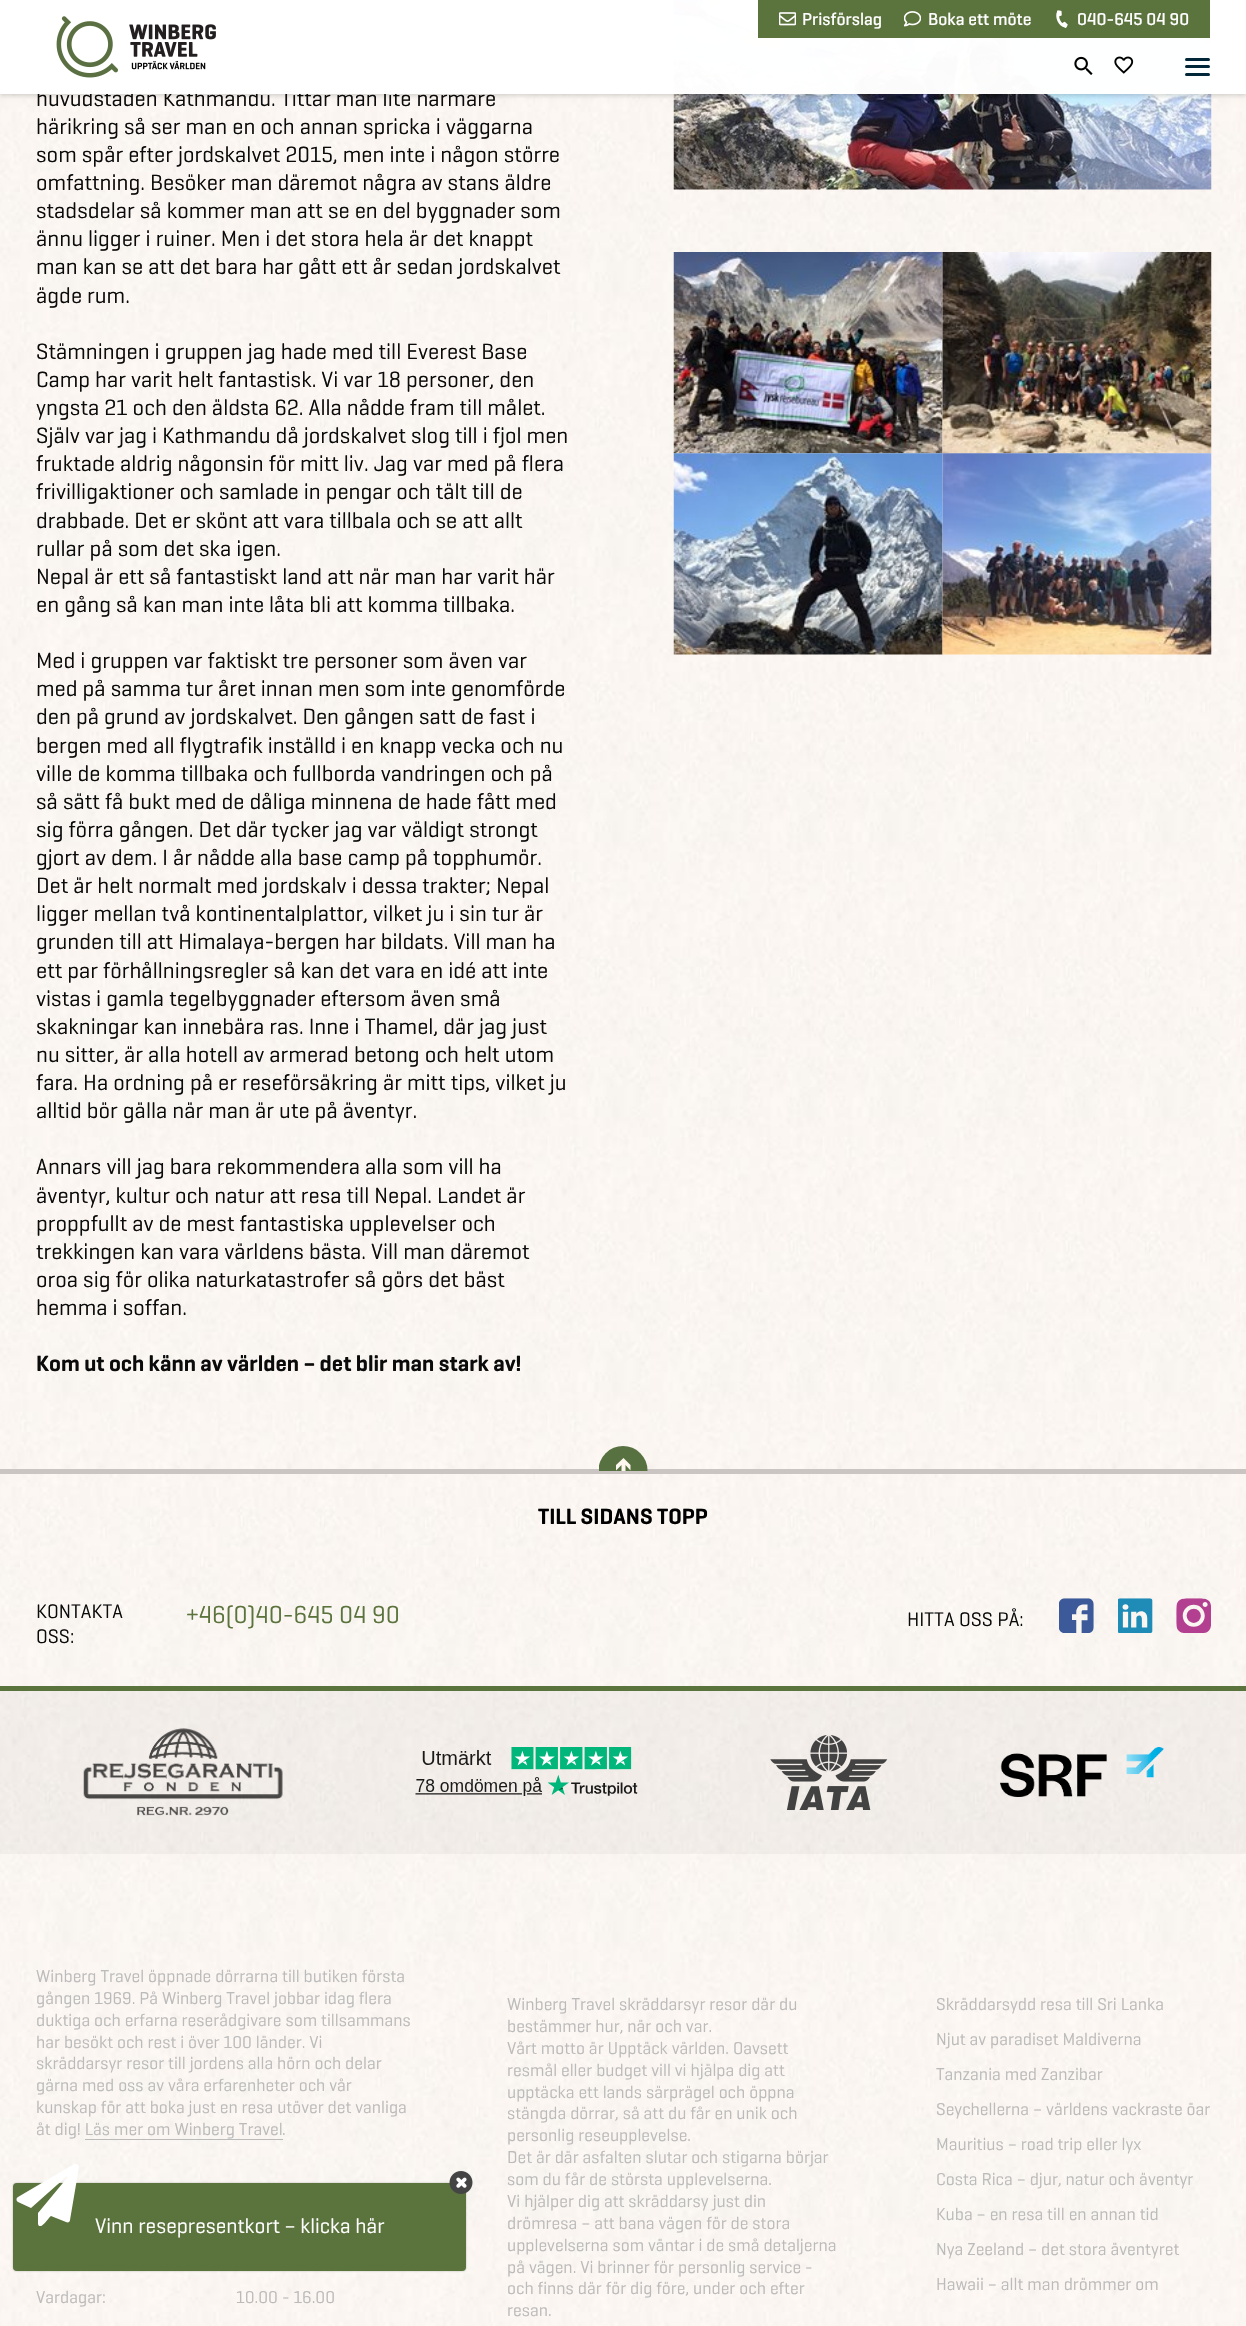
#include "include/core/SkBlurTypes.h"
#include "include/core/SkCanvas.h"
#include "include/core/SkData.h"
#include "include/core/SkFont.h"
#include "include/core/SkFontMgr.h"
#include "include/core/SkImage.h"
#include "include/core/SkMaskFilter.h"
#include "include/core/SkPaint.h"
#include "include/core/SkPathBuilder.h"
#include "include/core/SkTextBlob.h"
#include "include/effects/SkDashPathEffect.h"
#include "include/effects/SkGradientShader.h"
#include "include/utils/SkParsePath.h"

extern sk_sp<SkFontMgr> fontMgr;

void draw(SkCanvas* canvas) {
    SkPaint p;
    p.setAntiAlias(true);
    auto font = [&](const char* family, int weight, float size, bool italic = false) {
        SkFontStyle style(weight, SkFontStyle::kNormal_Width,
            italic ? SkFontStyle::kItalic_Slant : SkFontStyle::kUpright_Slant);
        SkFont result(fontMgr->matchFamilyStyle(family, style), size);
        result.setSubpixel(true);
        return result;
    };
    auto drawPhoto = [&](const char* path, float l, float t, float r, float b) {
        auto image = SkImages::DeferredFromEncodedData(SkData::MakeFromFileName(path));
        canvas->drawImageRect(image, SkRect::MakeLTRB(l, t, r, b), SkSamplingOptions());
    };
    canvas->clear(0xFFFFFFFF);
    drawPhoto("media/1.png", 0, 0, 1246, 2326);
    drawPhoto("media/8.png", 673, 0, 1212, 190);
    canvas->save();
    canvas->clipPath(SkPathBuilder(SkPathFillType::kEvenOdd).moveTo(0, 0).lineTo(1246, 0).lineTo(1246, 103).lineTo(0, 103).close().moveTo(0, 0).lineTo(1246, 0).lineTo(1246, 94).lineTo(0, 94).close().detach(), true);
    p.setColor(0x26000000);
    p.setMaskFilter(SkMaskFilter::MakeBlur(kNormal_SkBlurStyle, 2));
    canvas->drawRect(SkRect::MakeLTRB(0, 3, 1246, 96), p);
    p.setMaskFilter(nullptr);
    canvas->restore();
    auto font1 = font("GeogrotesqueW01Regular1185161", 400, 22.5f);
    p.setColor(0xFF0B0B0B);
    canvas->drawString("huvudstaden Kathmandu. Tittar man lite närmare", 36, 106, font1, p);
    p.setColor(0xFAFFFFFF);
    canvas->drawRect(SkRect::MakeLTRB(0, 0, 1246, 94), p);
    drawPhoto("media/2.png", 56, 16, 216, 78);
    p.setColor(0xFF5B733C);
    canvas->drawRect(SkRect::MakeLTRB(758, 0, 1210, 38), p);
    drawPhoto("media/3.png", 779, 12, 796, 26);
    auto font2 = font("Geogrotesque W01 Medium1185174", 500, 17.5f);
    p.setColor(0xFFFFFFFF);
    canvas->drawString("Prisförslag", 802, 25, font2, p);
    drawPhoto("media/4.png", 904, 11, 921, 27);
    canvas->drawString("Boka ett möte", 928, 25, font2, p);
    drawPhoto("media/5.png", 1056, 10, 1068, 28);
    canvas->drawString("040-645 04 90", 1077, 25, font2, p);
    drawPhoto("media/6.png", 1074, 56, 1093, 75);
    drawPhoto("media/7.png", 1114, 56, 1134, 74);
    p.setColor(0xFF00263A);
    canvas->drawRoundRect(SkRect::MakeLTRB(1185, 58, 1210, 61), 1.5f, 1.5f, p);
    canvas->drawRoundRect(SkRect::MakeLTRB(1185, 65, 1210, 68), 1.5f, 1.5f, p);
    canvas->drawRoundRect(SkRect::MakeLTRB(1185, 73, 1210, 76), 1.5f, 1.5f, p);
    p.setColor(0xFF0B0B0B);
    {
        const struct { const char* s; float x, y; } items[] = {
            {"härikring så ser man en och annan spricka i väggarna", 36, 134},
            {"som spår efter jordskalvet 2015, men inte i någon större", 36, 162},
            {"omfattning. Besöker man däremot några av stans äldre", 36, 190},
            {"stadsdelar så kommer man att se en del byggnader som", 36, 218},
            {"ännu ligger i ruiner. Men i det stora hela är det knappt", 36, 246},
            {"man kan se att det bara har gått ett år sedan jordskalvet", 36, 274},
            {"ägde rum.", 36, 303},
            {"Stämningen i gruppen jag hade med till Everest Base", 36, 359},
            {"Camp har varit helt fantastisk. Vi var 18 personer, den", 36, 387},
            {"yngsta 21 och den äldsta 62. Alla nådde fram till målet.", 36, 415},
            {"Själv var jag i Kathmandu då jordskalvet slog till i fjol men", 36, 443},
            {"fruktade aldrig någonsin för mitt liv. Jag var med på flera", 36, 471},
            {"frivilligaktioner och samlade in pengar och tält till de", 36, 499},
            {"drabbade. Det er skönt att vara tillbala och se att allt", 36, 528},
            {"rullar på som det ska igen.", 36, 556},
            {"Nepal är ett så fantastiskt land att när man har varit här", 36, 584},
            {"en gång så kan man inte låta bli att komma tillbaka.", 36, 612},
            {"Med i gruppen var faktiskt tre personer som även var", 36, 668},
            {"med på samma tur året innan men som inte genomförde", 36, 696},
            {"den på grund av jordskalvet. Den gången satt de fast i", 36, 724},
            {"bergen med all flygtrafik inställd i en knapp vecka och nu", 36, 753},
            {"ville de komma tillbaka och fullborda vandringen och på", 36, 781},
            {"så sätt få bukt med de dåliga minnena de hade fått med", 36, 809},
            {"sig förra gången. Det där tycker jag var väldigt strongt", 36, 837},
            {"gjort av dem. I år nådde alla base camp på topphumör.", 36, 865},
            {"Det är helt normalt med jordskalv i dessa trakter; Nepal", 36, 893},
            {"ligger mellan två kontinentalplattor, vilket ju i sin tur är", 36, 921},
            {"grunden till att Himalaya-bergen har bildats. Vill man ha", 36, 949},
            {"ett par förhållningsregler så kan det vara en idé att inte", 36, 978},
            {"vistas i gamla tegelbyggnader eftersom även små", 36, 1006},
            {"skakningar kan innebära ras. Inne i Thamel, där jag just", 36, 1034},
            {"nu sitter, är alla hotell av armerad betong och helt utom", 36, 1062},
            {"fara. Ha ordning på er reseförsäkring är mitt tips, vilket ju", 36, 1090},
            {"alltid bör gälla när man är ute på äventyr.", 36, 1118},
            {"Annars vill jag bara rekommendera alla som vill ha", 36, 1174},
            {"äventyr, kultur och natur att resa till Nepal. Landet är", 36, 1203},
            {"proppfullt av de mest fantastiska upplevelser och", 36, 1231},
            {"trekkingen kan vara världens bästa. Vill man däremot", 36, 1259},
            {"oroa sig för olika naturkatastrofer så görs det bäst", 36, 1287},
            {"hemma i soffan.", 36, 1315},
        };
        for (auto [s, x, y] : items) {
            canvas->drawString(s, x, y, font1, p);
        }
    }
    auto font3 = font("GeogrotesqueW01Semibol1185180", 600, 22.5f);
    canvas->drawString("Kom ut och känn av världen – det blir man stark av!", 36, 1371, font3, p);
    drawPhoto("media/9.png", 673, 252, 943, 454);
    drawPhoto("media/10.png", 942, 252, 1212, 454);
    drawPhoto("media/11.png", 673, 453, 943, 655);
    drawPhoto("media/12.png", 942, 453, 1212, 655);
    p.setColor(0xFFCAC5C3);
    canvas->drawRect(SkRect::MakeLTRB(0, 1469, 1246, 1474), p);
    canvas->save();
    canvas->clipRect(SkRect::MakeLTRB(599, 1446, 648, 1471));
    p.setColor(0xFF577141);
    canvas->drawCircle(623, 1470.5f, 24.5f, p);
    p.setColor(0xFFFDF7EF);
    canvas->drawPath(SkPathBuilder().moveTo(625.5f, 1483).lineTo(625.5f, 1465).lineTo(630.5f, 1470.5f).lineTo(630.5f, 1465).lineTo(623.5f, 1458).lineTo(616, 1465).lineTo(616, 1470.5f).lineTo(621.5f, 1465).lineTo(621.5f, 1483).close().detach(), p);
    canvas->restore();
    p.setColor(0xFF000000);
    canvas->drawString("TILL SIDANS TOPP", 538, 1524, font3, p);
    auto font4 = font("GeogrotesqueW01Regular1185161", 400, 20);
    p.setColor(0xFF0B0B0B);
    canvas->drawString("KONTAKTA", 36, 1618, font4, p);
    canvas->drawString("OSS:", 36, 1643, font4, p);
    auto font5 = font("GeogrotesqueW01Regular1185161", 400, 25);
    p.setColor(0xFF5B733C);
    canvas->drawString("+46(0)40-645 04 90", 186, 1623, font5, p);
    p.setColor(0xFF0B0B0B);
    canvas->drawString("HITTA OSS PÅ:", 907, 1626, font4, p);
    drawPhoto("media/13.png", 1059, 1598, 1094, 1633);
    drawPhoto("media/14.png", 1118, 1598, 1153, 1633);
    drawPhoto("media/15.png", 1176, 1598, 1211, 1633);
    p.setColor(0x0D525252);
    canvas->drawRect(SkRect::MakeLTRB(0, 1691, 1246, 1854), p);
    p.setColor(0xFF5B733C);
    canvas->drawRect(SkRect::MakeLTRB(0, 1686, 1246, 1691), p);
    drawPhoto("media/16.png", 83, 1728, 283, 1816);
    drawPhoto("media/17.png", 415, 1747, 638, 1796);
    drawPhoto("media/18.png", 770, 1735, 888, 1810);
    drawPhoto("media/19.png", 1000, 1747, 1164, 1797);
    auto font6 = font("GeogrotesqueW01Regular1185161", 400, 17.5f);
    p.setColor(0xFFBBBBBB);
    {
        const struct { const char* s; float x, y; } items[] = {
            {"Winberg Travel öppnade dörrarna till butiken första", 36, 1982},
            {"gången 1969. På Winberg Travel jobbar idag flera", 36, 2004},
            {"duktiga och erfarna reserådgivare som tillsammans", 36, 2026},
            {"har besökt och rest i över 100 länder. Vi", 36, 2048},
            {"skräddarsyr resor till jordens alla hörn och delar", 36, 2069},
            {"gärna med oss av våra erfarenheter och vår", 36, 2091},
            {"kunskap för att boka just en resa utöver det vanliga", 36, 2113},
            {"åt dig! Läs mer om Winberg Travel", 36, 2135},
            {".", 282, 2135},
        };
        for (auto [s, x, y] : items) {
            canvas->drawString(s, x, y, font6, p);
        }
    }
    canvas->drawRect(SkRect::MakeLTRB(85, 2139, 283, 2140), p);
    {
        const struct { const char* s; float x, y; } items[] = {
            {"Vardagar:", 36, 2303},
            {"10.00 - 16.00", 236, 2303},
            {"Winberg Travel skräddarsyr resor där du", 507, 2010},
            {"bestämmer hur, när och var.", 507, 2032},
            {"Vårt motto är Upptäck världen. Oavsett", 507, 2054},
            {"resmål eller budget vill vi hjälpa dig att", 507, 2076},
            {"upptäcka ett lands särprägel och öppna", 507, 2098},
            {"stängda dörrar, så att du får en unik och", 507, 2119},
            {"personlig reseupplevelse.", 507, 2141},
            {"Det är där asfalten slutar och stigarna börjar", 507, 2163},
            {"som du får de största upplevelserna.", 507, 2185},
            {"Vi hjälper dig att skräddarsy just din", 507, 2207},
            {"drömresa – att bana vägen för de stora", 507, 2229},
            {"upplevelserna som väntar i de små detaljerna", 507, 2251},
            {"på vägen. Vi brinner för personlig service -", 507, 2273},
            {"och finns där för dig före, under och efter", 507, 2294},
            {"resan.", 507, 2316},
            {"Skräddarsydd resa till Sri Lanka", 936, 2010},
            {"Njut av paradiset Maldiverna", 936, 2045},
            {"Tanzania med Zanzibar", 936, 2080},
            {"Seychellerna – världens vackraste öar", 936, 2115},
            {"Mauritius – road trip eller lyx", 936, 2150},
            {"Costa Rica – djur, natur och äventyr", 936, 2185},
            {"Kuba – en resa till en annan tid", 936, 2220},
            {"Nya Zeeland – det stora äventyret", 936, 2255},
            {"Hawaii – allt man drömmer om", 936, 2290},
        };
        for (auto [s, x, y] : items) {
            canvas->drawString(s, x, y, font6, p);
        }
    }
    p.setColor(0x4D000000);
    p.setMaskFilter(SkMaskFilter::MakeBlur(kNormal_SkBlurStyle, 1));
    canvas->drawRoundRect(SkRect::MakeLTRB(13, 2183, 466, 2271), 4, 4, p);
    p.setMaskFilter(nullptr);
    p.setColor(0xFF5B733C);
    canvas->drawRoundRect(SkRect::MakeLTRB(13, 2183, 466, 2271), 4, 4, p);
    drawPhoto("media/20.png", 449, 2171, 473, 2194);
    canvas->save();
    canvas->clipRect(SkRect::MakeLTRB(16, 2164, 79, 2226));
    p.setColor(0xFFFFFFFF);
    canvas->drawPath(SkPathBuilder().moveTo(74, 2164).lineTo(18, 2197).cubicTo(16, 2198, 16, 2201, 18, 2202).lineTo(31, 2208).lineTo(66, 2177).cubicTo(67, 2176, 68, 2177, 67, 2178).lineTo(38, 2213).lineTo(38, 2224).cubicTo(40, 2232, 49, 2217, 51, 2216).lineTo(66, 2222).cubicTo(68, 2223, 70, 2222, 70, 2220).lineTo(79, 2167).cubicTo(79, 2165, 76, 2163, 74, 2164).close().detach(), p);
    canvas->restore();
    auto font7 = font("GeogrotesqueW01Regular1185161", 400, 21.25f);
    canvas->drawString("Vinn resepresentkort – klicka här", 95, 2233, font7, p);
}
